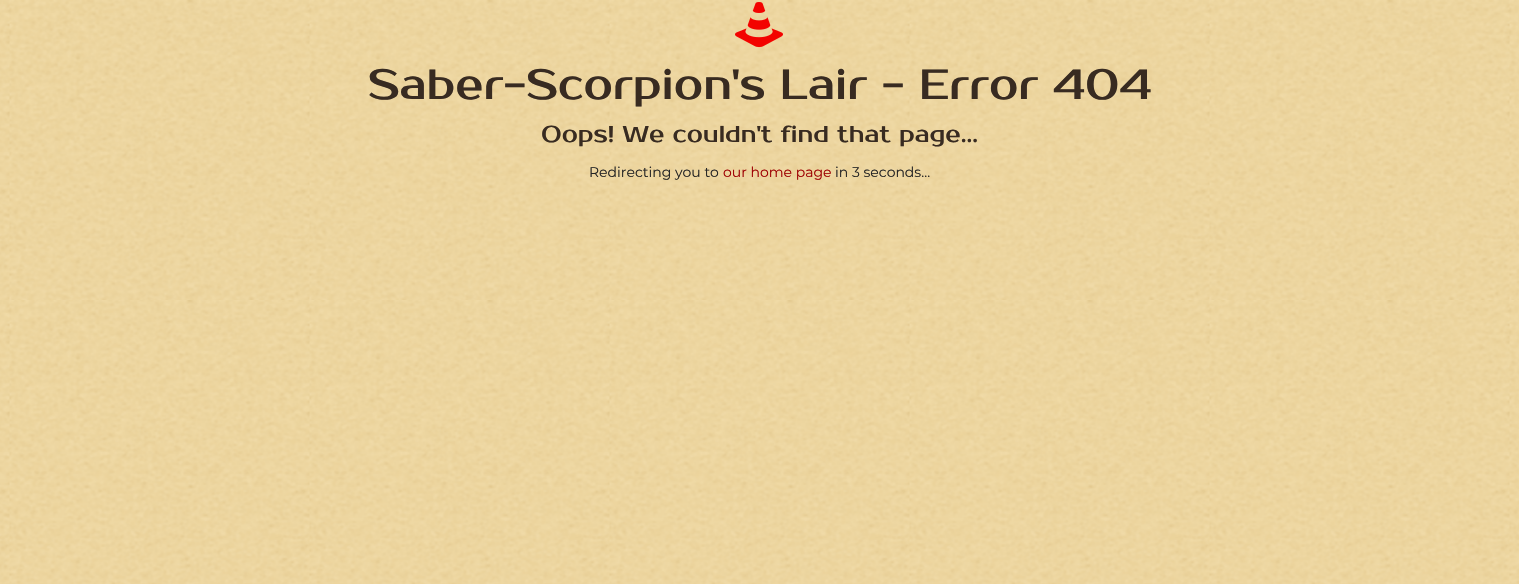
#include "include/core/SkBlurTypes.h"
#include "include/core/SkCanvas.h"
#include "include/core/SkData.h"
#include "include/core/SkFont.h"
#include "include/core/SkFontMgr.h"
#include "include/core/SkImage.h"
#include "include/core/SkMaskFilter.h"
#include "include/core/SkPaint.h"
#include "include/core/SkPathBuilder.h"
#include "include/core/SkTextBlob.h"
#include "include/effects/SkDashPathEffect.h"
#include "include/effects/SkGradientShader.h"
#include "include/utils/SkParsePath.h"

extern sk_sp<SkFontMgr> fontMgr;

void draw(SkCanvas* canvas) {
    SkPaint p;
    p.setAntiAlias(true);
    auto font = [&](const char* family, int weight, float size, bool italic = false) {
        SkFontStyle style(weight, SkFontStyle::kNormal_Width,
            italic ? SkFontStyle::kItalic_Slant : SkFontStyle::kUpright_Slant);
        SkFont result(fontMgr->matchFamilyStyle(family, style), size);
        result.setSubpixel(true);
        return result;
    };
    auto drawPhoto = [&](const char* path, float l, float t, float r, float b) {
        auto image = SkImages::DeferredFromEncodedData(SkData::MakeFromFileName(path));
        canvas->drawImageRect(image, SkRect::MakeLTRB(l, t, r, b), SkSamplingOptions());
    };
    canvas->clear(0xFFFFFFFF);
    drawPhoto("media/1.png", 0, 0, 1519, 584);
    drawPhoto("media/2.png", 735, 2, 783, 48);
    auto font1 = font("Prosto One", 400, 42);
    p.setColor(0xFF382B21);
    canvas->drawString("Saber-Scorpion's Lair - Error 404", 368, 99, font1, p);
    auto font2 = font("Prosto One", 400, 23);
    canvas->drawString("Oops! We couldn't find that page...", 541, 142, font2, p);
    auto font3 = font("Montserrat", 400, 14);
    p.setColor(0xFF242424);
    canvas->drawString("Redirecting you to", 589, 177, font3, p);
    p.setColor(0xFF9E0002);
    canvas->drawString("our home page", 723, 177, font3, p);
    p.setColor(0xFF242424);
    canvas->drawString("in 3 seconds...", 835, 177, font3, p);
}
